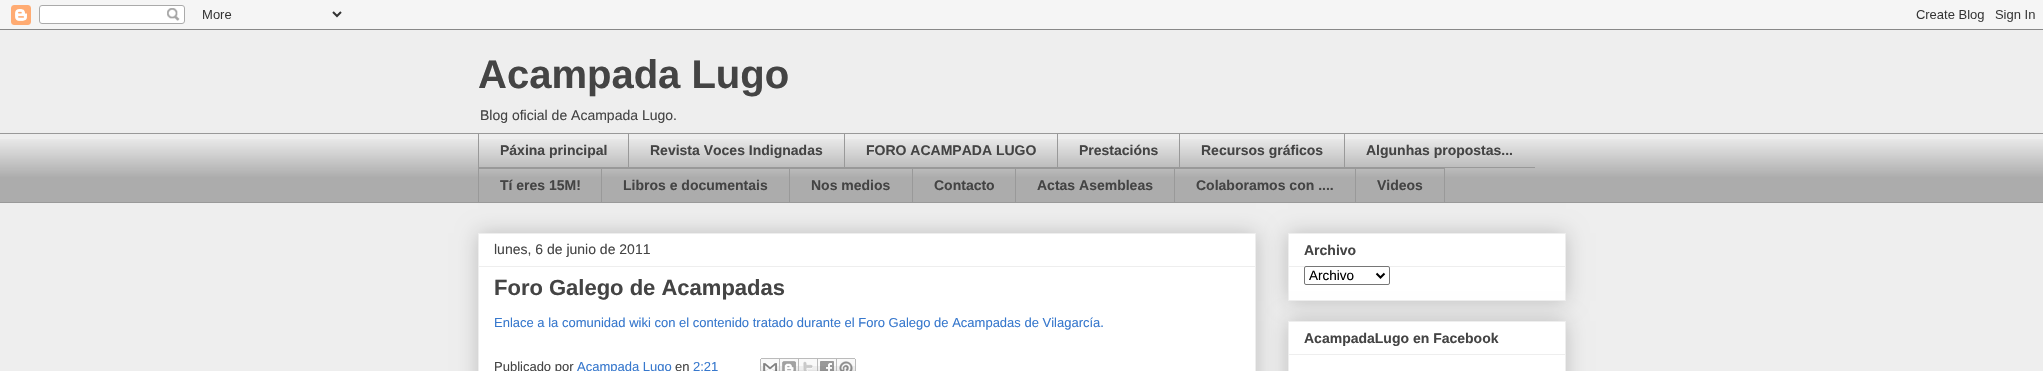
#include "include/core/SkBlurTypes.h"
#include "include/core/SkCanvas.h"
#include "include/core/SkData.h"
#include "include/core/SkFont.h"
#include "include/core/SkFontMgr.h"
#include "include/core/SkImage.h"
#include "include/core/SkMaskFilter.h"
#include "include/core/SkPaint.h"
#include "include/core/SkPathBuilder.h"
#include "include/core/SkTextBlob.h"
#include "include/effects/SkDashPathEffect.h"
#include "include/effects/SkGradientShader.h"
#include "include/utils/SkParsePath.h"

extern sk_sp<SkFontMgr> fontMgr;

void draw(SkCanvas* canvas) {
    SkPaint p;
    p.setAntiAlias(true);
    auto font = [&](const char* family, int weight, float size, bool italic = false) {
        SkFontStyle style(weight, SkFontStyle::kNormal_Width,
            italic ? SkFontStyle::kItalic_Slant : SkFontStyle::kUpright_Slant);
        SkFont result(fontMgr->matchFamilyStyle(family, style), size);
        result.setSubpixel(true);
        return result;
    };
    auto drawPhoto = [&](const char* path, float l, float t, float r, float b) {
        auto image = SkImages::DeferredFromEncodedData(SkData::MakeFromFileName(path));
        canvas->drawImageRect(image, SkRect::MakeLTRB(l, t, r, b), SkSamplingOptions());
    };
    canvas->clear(0xFFEEEEEE);
    drawPhoto("media/1.png", 0, 0, 2043, 30);
    auto font1 = font("Liberation Sans", 700, 40);
    p.setColor(0xFF444444);
    canvas->drawString("Acampada Lugo", 478, 88, font1, p);
    auto font2 = font("Liberation Sans", 400, 14);
    canvas->drawString("Blog oficial de Acampada Lugo.", 480, 120, font2, p);
    drawPhoto("media/2.png", 0, 139, 2043, 202);
    {
        const struct { float l, t, r, b; SkColor color; } items[] = {
            {0, 133, 2043, 134, 0xFF999999},
            {478, 167, 1535, 168, 0xFF999999},
            {478, 133, 479, 168, 0xFF999999},
        };
        for (auto [l, t, r, b, color] : items) {
            p.setColor(color);
            canvas->drawRect(SkRect::MakeLTRB(l, t, r, b), p);
        }
    }
    auto font3 = font("Liberation Sans", 700, 14);
    p.setColor(0xFF444444);
    canvas->drawString("Páxina principal", 500, 155, font3, p);
    p.setColor(0xFF999999);
    canvas->drawRect(SkRect::MakeLTRB(628, 133, 629, 168), p);
    p.setColor(0xFF444444);
    canvas->drawString("Revista Voces Indignadas", 650, 155, font3, p);
    p.setColor(0xFF999999);
    canvas->drawRect(SkRect::MakeLTRB(844, 133, 845, 168), p);
    p.setColor(0xFF444444);
    canvas->drawString("FORO ACAMPADA LUGO", 866, 155, font3, p);
    p.setColor(0xFF999999);
    canvas->drawRect(SkRect::MakeLTRB(1057, 133, 1058, 168), p);
    p.setColor(0xFF444444);
    canvas->drawString("Prestacións", 1079, 155, font3, p);
    p.setColor(0xFF999999);
    canvas->drawRect(SkRect::MakeLTRB(1179, 133, 1180, 168), p);
    p.setColor(0xFF444444);
    canvas->drawString("Recursos gráficos", 1201, 155, font3, p);
    p.setColor(0xFF999999);
    canvas->drawRect(SkRect::MakeLTRB(1344, 133, 1345, 168), p);
    p.setColor(0xFF444444);
    canvas->drawString("Algunhas propostas...", 1366, 155, font3, p);
    p.setColor(0xFF999999);
    canvas->drawRect(SkRect::MakeLTRB(478, 168, 1355, 169), p);
    canvas->drawRect(SkRect::MakeLTRB(478, 168, 479, 203), p);
    p.setColor(0xFF444444);
    canvas->drawString("Tí eres 15M!", 500, 190, font3, p);
    p.setColor(0xFF999999);
    canvas->drawRect(SkRect::MakeLTRB(601, 168, 602, 203), p);
    p.setColor(0xFF444444);
    canvas->drawString("Libros e documentais", 623, 190, font3, p);
    p.setColor(0xFF999999);
    canvas->drawRect(SkRect::MakeLTRB(789, 168, 790, 203), p);
    p.setColor(0xFF444444);
    canvas->drawString("Nos medios", 811, 190, font3, p);
    p.setColor(0xFF999999);
    canvas->drawRect(SkRect::MakeLTRB(912, 168, 913, 203), p);
    p.setColor(0xFF444444);
    canvas->drawString("Contacto", 934, 190, font3, p);
    p.setColor(0xFF999999);
    canvas->drawRect(SkRect::MakeLTRB(1015, 168, 1016, 203), p);
    p.setColor(0xFF444444);
    canvas->drawString("Actas Asembleas", 1037, 190, font3, p);
    p.setColor(0xFF999999);
    canvas->drawRect(SkRect::MakeLTRB(1174, 168, 1175, 203), p);
    p.setColor(0xFF444444);
    canvas->drawString("Colaboramos con ....", 1196, 190, font3, p);
    p.setStyle(SkPaint::kStroke_Style);
    p.setStrokeWidth(1);
    p.setColor(0xFF999999);
    canvas->drawRect(SkRect::MakeLTRB(1355.5f, 168.5f, 1444.5f, 202.5f), p);
    p.setStyle(SkPaint::kFill_Style);
    p.setColor(0xFF444444);
    canvas->drawString("Videos", 1377, 190, font3, p);
    p.setColor(0xFF999999);
    canvas->drawRect(SkRect::MakeLTRB(0, 202, 2043, 203), p);
    p.setColor(0x33000000);
    p.setMaskFilter(SkMaskFilter::MakeBlur(kNormal_SkBlurStyle, 10));
    canvas->drawRect(SkRect::MakeLTRB(478, 233, 1256, 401), p);
    p.setMaskFilter(nullptr);
    p.setColor(0xFFFFFFFF);
    canvas->drawRect(SkRect::MakeLTRB(478.5f, 233.5f, 1255.5f, 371.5f), p);
    p.setStyle(SkPaint::kStroke_Style);
    p.setColor(0xFFEEEEEE);
    canvas->drawRect(SkRect::MakeLTRB(478.5f, 233.5f, 1255.5f, 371.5f), p);
    p.setStyle(SkPaint::kFill_Style);
    p.setColor(0xFF444444);
    canvas->drawString("lunes, 6 de junio de 2011", 494, 254, font2, p);
    p.setColor(0xFFEEEEEE);
    canvas->drawRect(SkRect::MakeLTRB(479, 266, 1255, 267), p);
    auto font4 = font("Liberation Sans", 700, 22);
    p.setColor(0xFF444444);
    canvas->drawString("Foro Galego de Acampadas", 494, 295, font4, p);
    auto font5 = font("Liberation Sans", 400, 13);
    p.setColor(0xFF3778CD);
    canvas->drawString("Enlace a la comunidad wiki con el contenido tratado durante el Foro Galego de Acampadas de Vilagarcía.", 494, 327, font5, p);
    p.setColor(0xFF444444);
    canvas->drawString("Publicado por", 494, 371, font5, p);
    p.setColor(0xFF3778CD);
    canvas->drawString("Acampada Lugo", 577, 371, font5, p);
    p.setColor(0xFF444444);
    canvas->drawString("en", 675, 371, font5, p);
    p.setColor(0xFF3778CD);
    canvas->drawString("2:21", 693, 371, font5, p);
    drawPhoto("media/3.png", 760, 358, 780, 371);
    drawPhoto("media/4.png", 780, 358, 799, 371);
    drawPhoto("media/5.png", 799, 358, 818, 371);
    drawPhoto("media/6.png", 818, 358, 837, 371);
    drawPhoto("media/7.png", 837, 358, 856, 371);
    p.setColor(0x33000000);
    p.setMaskFilter(SkMaskFilter::MakeBlur(kNormal_SkBlurStyle, 10));
    canvas->drawRect(SkRect::MakeLTRB(1288, 233, 1566, 301), p);
    p.setMaskFilter(nullptr);
    p.setColor(0xFFFFFFFF);
    canvas->drawRect(SkRect::MakeLTRB(1288.5f, 233.5f, 1565.5f, 300.5f), p);
    p.setStyle(SkPaint::kStroke_Style);
    p.setColor(0xFFEEEEEE);
    canvas->drawRect(SkRect::MakeLTRB(1288.5f, 233.5f, 1565.5f, 300.5f), p);
    p.setStyle(SkPaint::kFill_Style);
    p.setColor(0xFF444444);
    canvas->drawString("Archivo", 1304, 255, font3, p);
    p.setColor(0xFFEEEEEE);
    canvas->drawRect(SkRect::MakeLTRB(1289, 266, 1565, 267), p);
    p.setColor(0xFFFFFFFF);
    canvas->drawRoundRect(SkRect::MakeLTRB(1304.5f, 266.5f, 1389.5f, 284.5f), 1.5f, 1.5f, p);
    p.setStyle(SkPaint::kStroke_Style);
    p.setColor(0xFF767676);
    canvas->drawRoundRect(SkRect::MakeLTRB(1304.5f, 266.5f, 1389.5f, 284.5f), 1.5f, 1.5f, p);
    p.setStrokeWidth(2);
    p.setColor(0xFF000000);
    canvas->drawPath(SkPathBuilder().moveTo(1376.5f, 273.5f).lineTo(1380.5f, 277.5f).lineTo(1384.5f, 273.5f).detach(), p);
    auto font6 = font("Liberation Sans", 400, 13.5f);
    p.setStyle(SkPaint::kFill_Style);
    canvas->drawString("Archivo", 1309, 280, font6, p);
    p.setColor(0x33000000);
    p.setMaskFilter(SkMaskFilter::MakeBlur(kNormal_SkBlurStyle, 10));
    canvas->drawRect(SkRect::MakeLTRB(1288, 321, 1566, 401), p);
    p.setMaskFilter(nullptr);
    p.setColor(0xFFFFFFFF);
    canvas->drawRect(SkRect::MakeLTRB(1288.5f, 321.5f, 1565.5f, 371.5f), p);
    p.setStyle(SkPaint::kStroke_Style);
    p.setStrokeWidth(1);
    p.setColor(0xFFEEEEEE);
    canvas->drawRect(SkRect::MakeLTRB(1288.5f, 321.5f, 1565.5f, 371.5f), p);
    p.setStyle(SkPaint::kFill_Style);
    p.setColor(0xFF444444);
    canvas->drawString("AcampadaLugo en Facebook", 1304, 343, font3, p);
    p.setColor(0xFFEEEEEE);
    canvas->drawRect(SkRect::MakeLTRB(1289, 354, 1565, 355), p);
}
